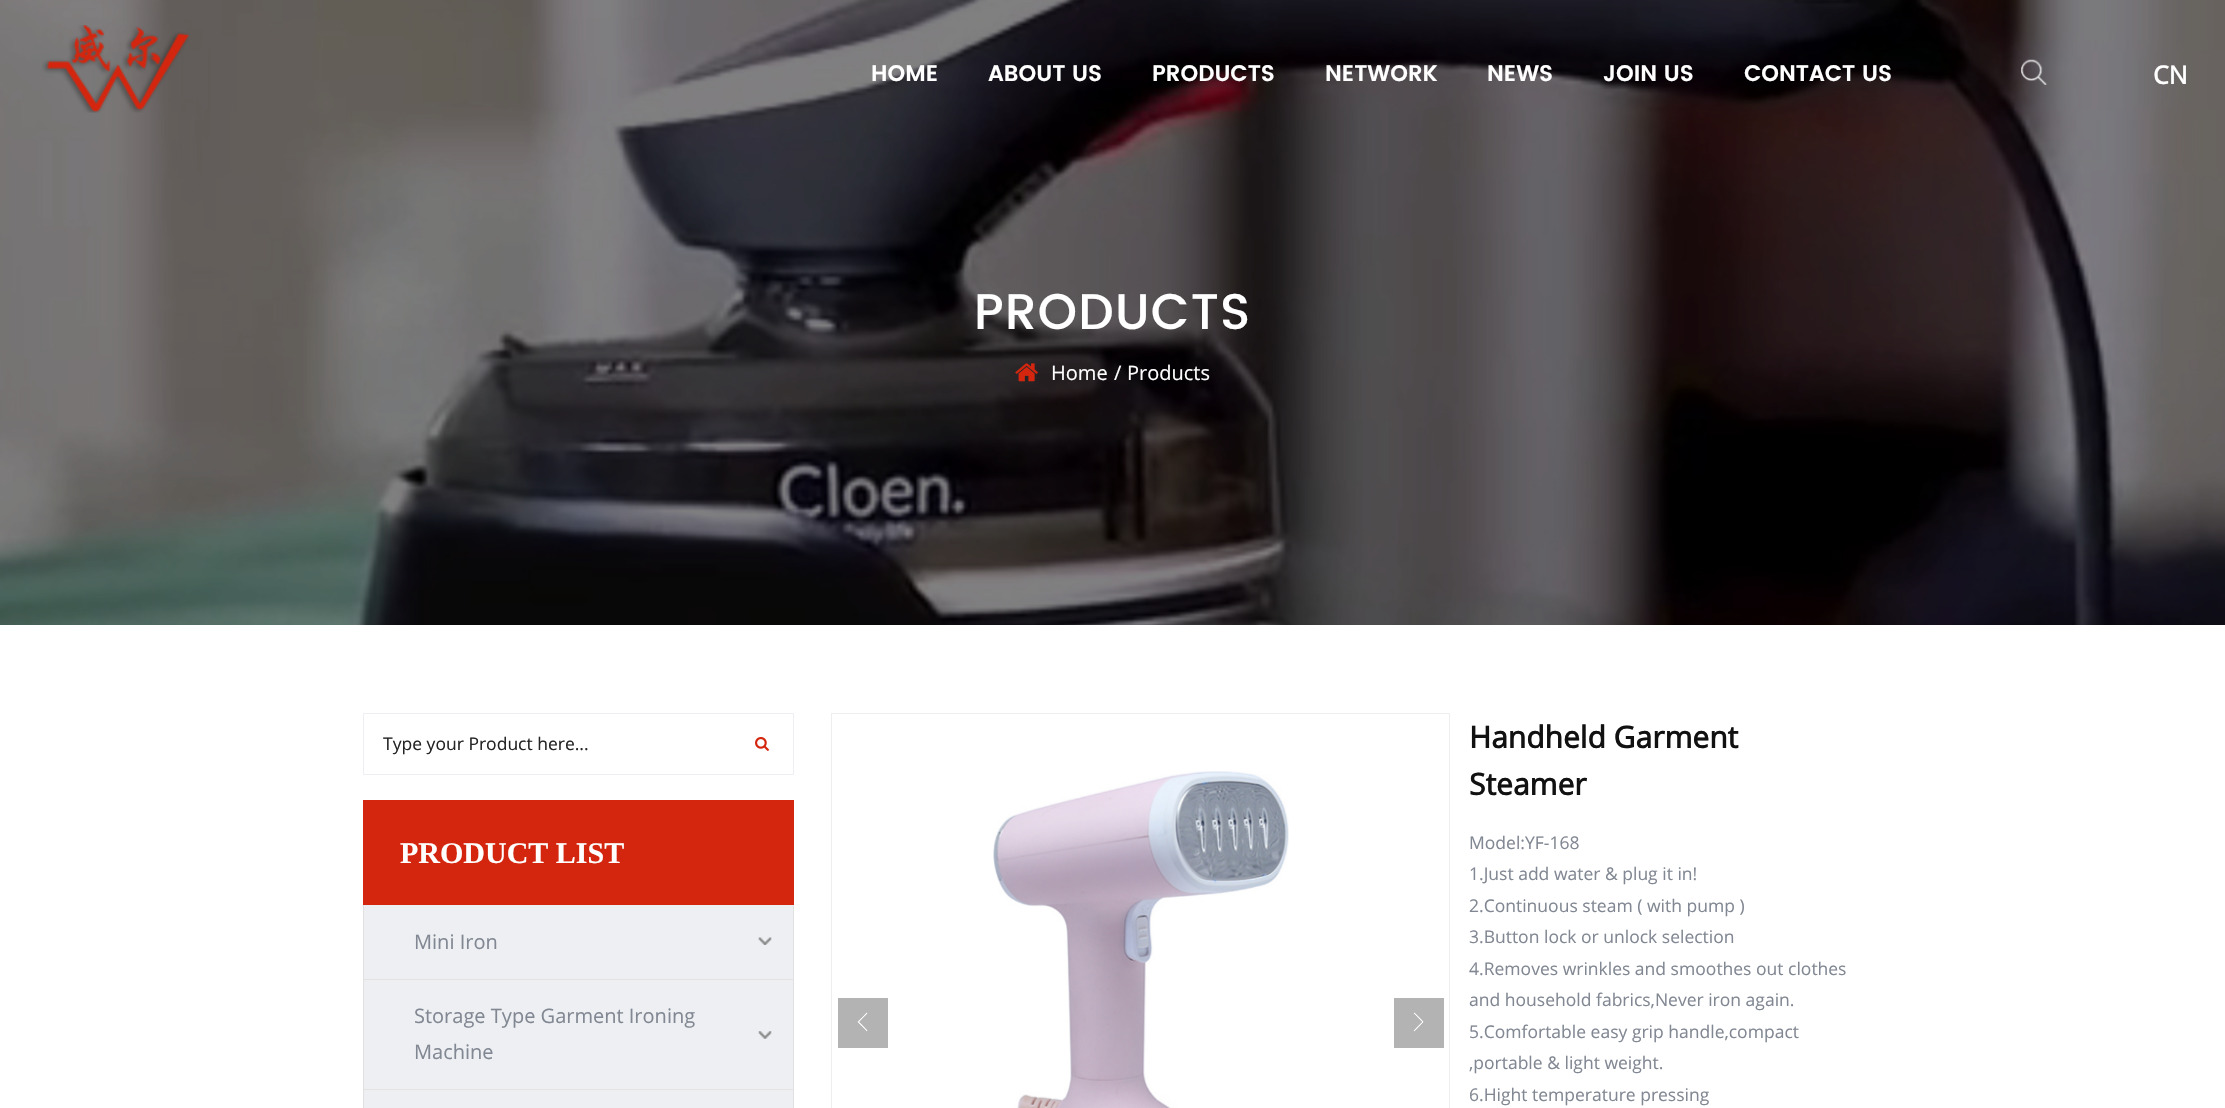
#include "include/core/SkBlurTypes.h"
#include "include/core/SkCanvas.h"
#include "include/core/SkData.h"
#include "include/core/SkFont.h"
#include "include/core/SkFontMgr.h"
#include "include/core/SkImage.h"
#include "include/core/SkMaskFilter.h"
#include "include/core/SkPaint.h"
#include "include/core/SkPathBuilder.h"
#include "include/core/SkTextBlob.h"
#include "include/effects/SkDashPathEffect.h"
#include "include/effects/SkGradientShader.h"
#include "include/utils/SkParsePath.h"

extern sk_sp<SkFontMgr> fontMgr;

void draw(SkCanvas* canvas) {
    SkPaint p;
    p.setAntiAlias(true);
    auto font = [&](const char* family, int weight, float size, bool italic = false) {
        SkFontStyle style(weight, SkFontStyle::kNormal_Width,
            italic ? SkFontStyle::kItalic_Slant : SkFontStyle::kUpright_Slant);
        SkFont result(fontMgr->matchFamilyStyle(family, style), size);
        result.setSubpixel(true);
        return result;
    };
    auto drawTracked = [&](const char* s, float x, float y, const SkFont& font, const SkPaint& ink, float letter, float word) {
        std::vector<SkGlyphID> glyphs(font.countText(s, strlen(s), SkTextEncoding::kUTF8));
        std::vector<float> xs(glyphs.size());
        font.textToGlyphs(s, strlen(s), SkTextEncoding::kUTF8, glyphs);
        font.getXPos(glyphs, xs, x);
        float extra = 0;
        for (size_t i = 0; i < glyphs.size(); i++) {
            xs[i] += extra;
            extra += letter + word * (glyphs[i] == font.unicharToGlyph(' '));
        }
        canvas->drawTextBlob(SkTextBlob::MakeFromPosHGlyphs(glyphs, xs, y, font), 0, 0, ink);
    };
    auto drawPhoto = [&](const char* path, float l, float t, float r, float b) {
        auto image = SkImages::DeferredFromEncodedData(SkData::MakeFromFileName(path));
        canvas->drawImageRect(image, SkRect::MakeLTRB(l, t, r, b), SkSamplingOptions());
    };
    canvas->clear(0xFFFFFFFF);
    drawPhoto("media/3.png", 0, 0, 2225, 625);
    drawPhoto("media/1.png", 42, 25, 189, 113);
    auto font1 = font("Poppins", 600, 22.5f);
    p.setColor(0xFFFFFFFF);
    {
        const struct { const char* s; float x, y; } items[] = {
            {"HOME", 871, 81},
            {"ABOUT US", 988, 81},
            {"PRODUCTS", 1152, 81},
            {"NETWORK", 1325, 81},
            {"NEWS", 1487, 81},
            {"JOIN US", 1603, 81},
            {"CONTACT US", 1744, 81},
        };
        for (auto [s, x, y] : items) {
            canvas->drawString(s, x, y, font1, p);
        }
    }
    drawPhoto("media/2.png", 2021, 59, 2047, 85);
    auto font2 = font("Open Sans", 700, 25);
    canvas->drawString("CN", 2153, 84, font2, p);
    auto font3 = font("Poppins", 500, 50);
    drawTracked("PRODUCTS", 974, 329, font3, p, 1.25f, 0);
    drawPhoto("media/4.png", 1015, 363, 1038, 382);
    auto font4 = font("Open Sans", 400, 20);
    {
        const struct { const char* s; float x, y; } items[] = {
            {"Home", 1051, 380},
            {"/", 1114, 380},
            {"Products", 1127, 380},
        };
        for (auto [s, x, y] : items) {
            canvas->drawString(s, x, y, font4, p);
        }
    }
    p.setStyle(SkPaint::kStroke_Style);
    p.setStrokeWidth(1);
    p.setColor(0xFFEDEFF2);
    canvas->drawRect(SkRect::MakeLTRB(363.5f, 713.5f, 793.5f, 774.5f), p);
    auto font5 = font("Open Sans", 400, 17.5f);
    p.setStyle(SkPaint::kFill_Style);
    p.setColor(0xFF242424);
    canvas->drawString("Type your Product here...", 383, 750, font5, p);
    drawPhoto("media/5.png", 755, 737, 769, 751);
    p.setColor(0xFFD4260E);
    canvas->drawRect(SkRect::MakeLTRB(363, 800, 794, 905), p);
    auto font6 = font("Liberation Serif", 700, 30);
    p.setColor(0xFFFFFFFF);
    canvas->drawString("PRODUCT LIST", 400, 863, font6, p);
    {
        const struct { float l, t, r, b; SkColor color; } items[] = {
            {364, 905, 793, 1108, 0xFFEDEFF2},
            {793, 905, 794, 1108, 0xFFE1E1E1},
            {363, 905, 364, 1108, 0xFFE1E1E1},
        };
        for (auto [l, t, r, b, color] : items) {
            p.setColor(color);
            canvas->drawRect(SkRect::MakeLTRB(l, t, r, b), p);
        }
    }
    drawPhoto("media/6.png", 758, 937, 772, 945);
    p.setColor(0xFFE4E3E1);
    canvas->drawRect(SkRect::MakeLTRB(364, 979, 793, 980), p);
    p.setColor(0xFF828893);
    canvas->drawString("Mini Iron", 414, 949, font4, p);
    drawPhoto("media/7.png", 758, 1031, 772, 1039);
    p.setColor(0xFFE4E3E1);
    canvas->drawRect(SkRect::MakeLTRB(364, 1089, 793, 1090), p);
    p.setColor(0xFF828893);
    canvas->drawString("Storage Type Garment Ironing", 414, 1023, font4, p);
    canvas->drawString("Machine", 414, 1059, font4, p);
    p.setStyle(SkPaint::kStroke_Style);
    p.setColor(0xFFEEEEEE);
    canvas->drawRect(SkRect::MakeLTRB(831.5f, 713.5f, 1449.5f, 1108.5f), p);
    drawPhoto("media/8.png", 993, 771, 1289, 1108);
    p.setStyle(SkPaint::kFill_Style);
    p.setColor(0xFFB3B3B3);
    canvas->drawRect(SkRect::MakeLTRB(838, 998, 888, 1048), p);
    drawPhoto("media/9.png", 857, 1012, 868, 1032);
    canvas->drawRect(SkRect::MakeLTRB(1394, 998, 1444, 1048), p);
    drawPhoto("media/10.png", 1413, 1012, 1424, 1032);
    auto font7 = font("Open Sans", 700, 30);
    p.setColor(0xFF111111);
    canvas->drawString("Handheld Garment", 1469, 748, font7, p);
    canvas->drawString("Steamer", 1469, 795, font7, p);
    p.setColor(0xFF828893);
    {
        const struct { const char* s; float x, y; } items[] = {
            {"Model:YF-168", 1469, 849},
            {"1.Just add water & plug it in!", 1469, 880},
            {"2.Continuous steam ( with pump )", 1469, 912},
            {"3.Button lock or unlock selection", 1469, 943},
            {"4.Removes wrinkles and smoothes out clothes", 1469, 975},
            {"and household fabrics,Never iron again.", 1469, 1006},
            {"5.Comfortable easy grip handle,compact", 1469, 1038},
            {",portable & light weight.", 1469, 1069},
            {"6.Hight temperature pressing", 1469, 1101},
        };
        for (auto [s, x, y] : items) {
            canvas->drawString(s, x, y, font5, p);
        }
    }
}
